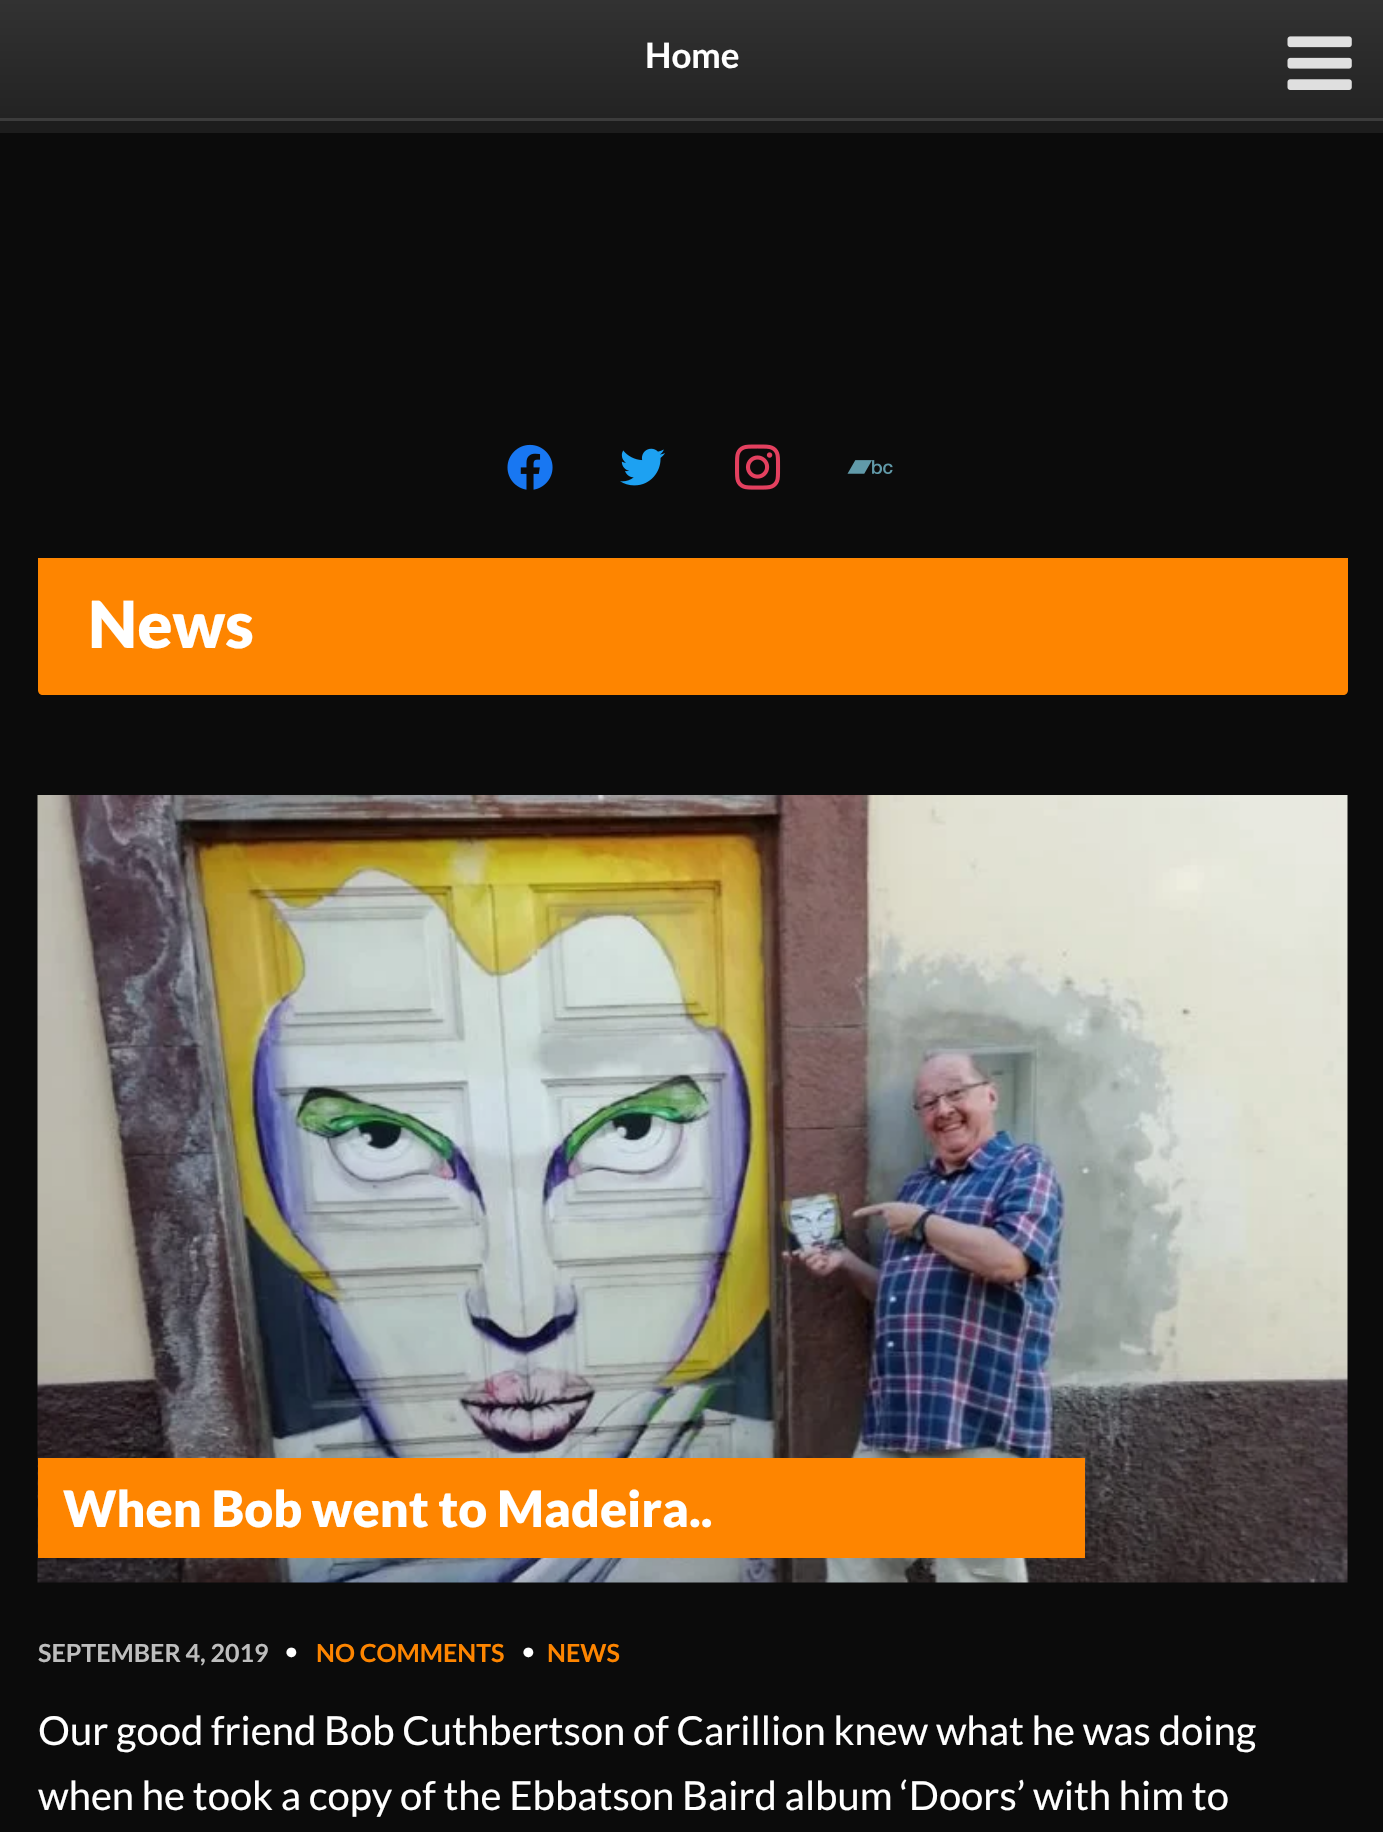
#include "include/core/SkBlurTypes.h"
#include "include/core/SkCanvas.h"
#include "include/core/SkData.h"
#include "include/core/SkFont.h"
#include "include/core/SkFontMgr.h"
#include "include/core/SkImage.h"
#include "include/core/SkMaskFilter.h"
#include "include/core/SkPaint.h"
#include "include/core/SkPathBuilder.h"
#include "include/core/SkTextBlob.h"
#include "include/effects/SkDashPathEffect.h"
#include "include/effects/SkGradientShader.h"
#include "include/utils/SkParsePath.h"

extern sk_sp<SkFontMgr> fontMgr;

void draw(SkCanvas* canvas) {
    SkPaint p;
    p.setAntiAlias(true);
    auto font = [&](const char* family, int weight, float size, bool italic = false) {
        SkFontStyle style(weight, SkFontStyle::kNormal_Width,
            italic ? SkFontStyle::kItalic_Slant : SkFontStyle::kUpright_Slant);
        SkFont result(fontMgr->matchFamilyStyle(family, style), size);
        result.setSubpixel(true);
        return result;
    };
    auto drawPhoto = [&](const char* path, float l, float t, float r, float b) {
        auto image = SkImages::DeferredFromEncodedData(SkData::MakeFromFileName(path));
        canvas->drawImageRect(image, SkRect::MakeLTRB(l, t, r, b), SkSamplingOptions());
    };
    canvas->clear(0xFF1D1D1D);
    {
        const SkColor colors[] = {0xFF323232, 0xFF232323};
        const float stops[] = {0, 1};
        const SkPoint ends[] = {{693, 0}, {693, 118}};
        p.setShader(SkGradientShader::MakeLinear(ends, colors, stops, 2, SkTileMode::kClamp));
        p.setAlpha(255);
    }
    canvas->drawRect(SkRect::MakeLTRB(0, 0, 1383, 118), p);
    p.setShader(nullptr);
    p.setColor(0xFF3C3C3C);
    canvas->drawRect(SkRect::MakeLTRB(0, 118, 1383, 121), p);
    auto font1 = font("Lato", 700, 35);
    p.setColor(0xFFFFFFFF);
    canvas->drawString("Home", 645, 68, font1, p);
    drawPhoto("media/1.png", 1287, 36, 1352, 90);
    p.setColor(0xFF0B0B0B);
    canvas->drawRect(SkRect::MakeLTRB(0, 133, 1383, 1832), p);
    drawPhoto("media/2.png", 507, 444, 553, 490);
    drawPhoto("media/3.png", 620, 448, 665, 486);
    drawPhoto("media/4.png", 735, 444, 781, 490);
    drawPhoto("media/5.png", 847, 460, 893, 474);
    p.setColor(0xFFFE8500);
    canvas->drawPath(SkPathBuilder().moveTo(38, 558).lineTo(1348, 558).lineTo(1348, 690).cubicTo(1348, 693, 1346, 695, 1343, 695).lineTo(43, 695).cubicTo(40, 695, 38, 693, 38, 690).close().detach(), p);
    auto font2 = font("Lato", 900, 65);
    p.setColor(0xFFFFFFFF);
    canvas->drawString("News", 88, 648, font2, p);
    drawPhoto("media/6.png", 37, 795, 1348, 1583);
    p.setColor(0xFFFE8500);
    canvas->drawRect(SkRect::MakeLTRB(38, 1458, 1085, 1558), p);
    auto font3 = font("Lato", 900, 50);
    p.setColor(0xFFFFFFFF);
    canvas->drawString("When Bob went to Madeira..", 63, 1527, font3, p);
    auto font4 = font("Lato", 700, 25);
    p.setColor(0xFFBEBEBE);
    canvas->drawString("SEPTEMBER 4, 2019", 38, 1662, font4, p);
    auto font5 = font("Lato", 700, 22);
    p.setColor(0xFFFFFFFF);
    canvas->drawString("•", 285, 1659, font5, p);
    p.setColor(0xFFFE8500);
    canvas->drawString("NO COMMENTS", 316, 1662, font4, p);
    p.setColor(0xFFFFFFFF);
    canvas->drawString("•", 522, 1659, font5, p);
    p.setColor(0xFFFE8500);
    canvas->drawString("NEWS", 547, 1662, font4, p);
    auto font6 = font("Lato", 400, 40);
    p.setColor(0xFFFFFFFF);
    canvas->drawString("Our good friend Bob Cuthbertson of Carillion knew what he was doing", 38, 1745, font6, p);
    canvas->drawString("when he took a copy of the Ebbatson Baird album ‘Doors’ with him to", 38, 1810, font6, p);
}
